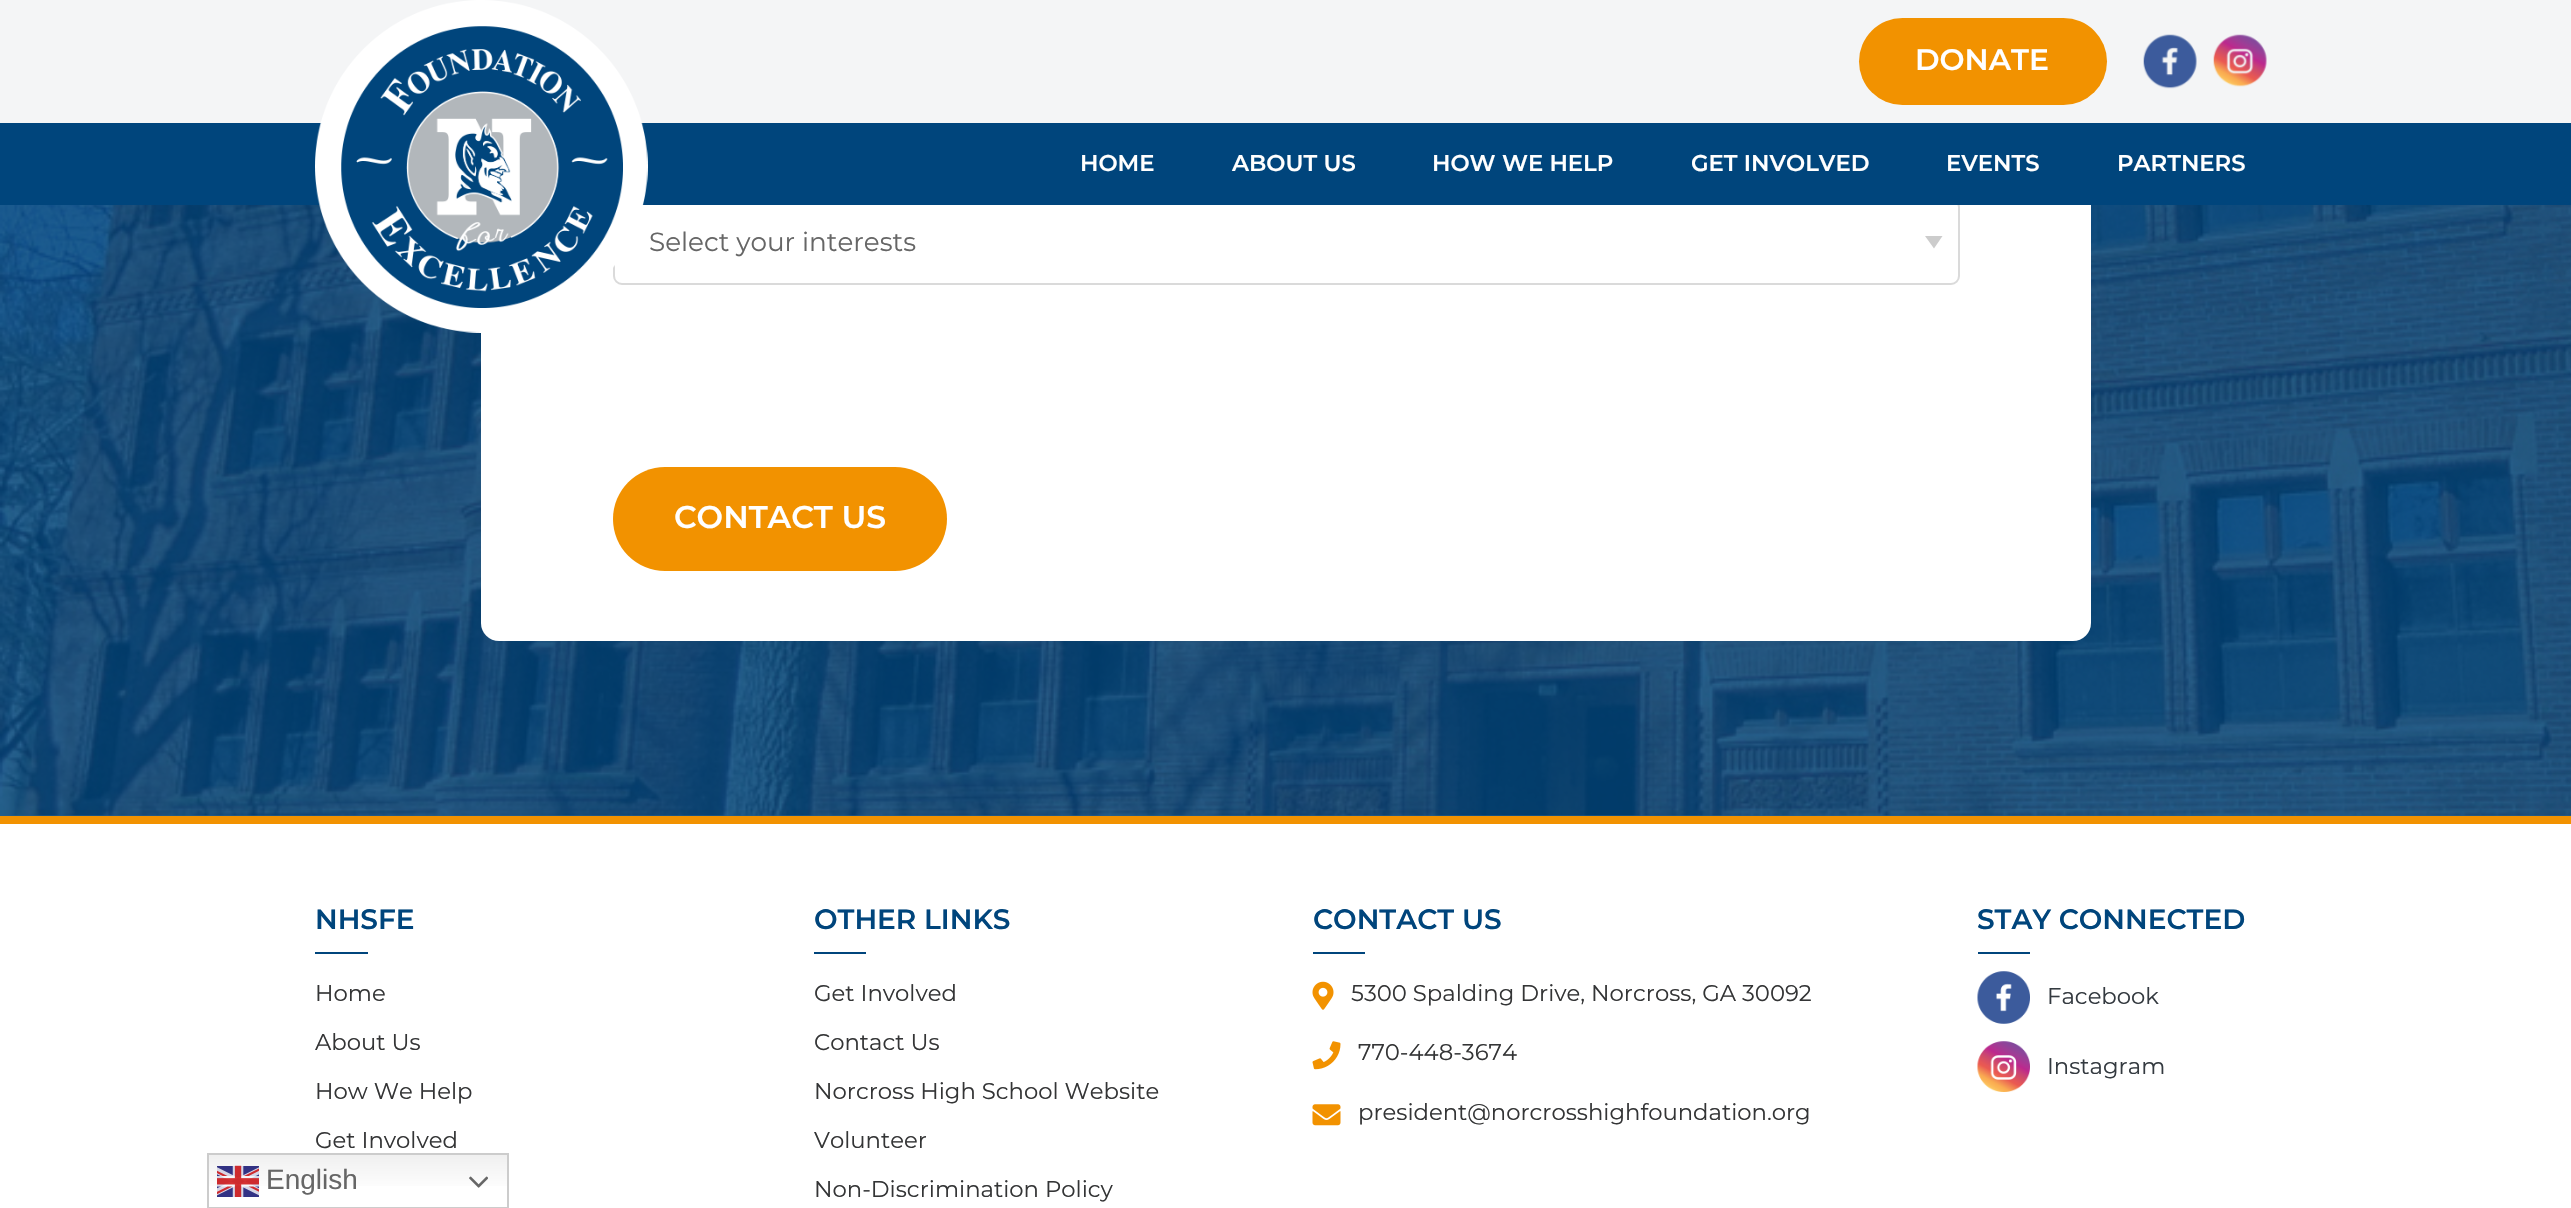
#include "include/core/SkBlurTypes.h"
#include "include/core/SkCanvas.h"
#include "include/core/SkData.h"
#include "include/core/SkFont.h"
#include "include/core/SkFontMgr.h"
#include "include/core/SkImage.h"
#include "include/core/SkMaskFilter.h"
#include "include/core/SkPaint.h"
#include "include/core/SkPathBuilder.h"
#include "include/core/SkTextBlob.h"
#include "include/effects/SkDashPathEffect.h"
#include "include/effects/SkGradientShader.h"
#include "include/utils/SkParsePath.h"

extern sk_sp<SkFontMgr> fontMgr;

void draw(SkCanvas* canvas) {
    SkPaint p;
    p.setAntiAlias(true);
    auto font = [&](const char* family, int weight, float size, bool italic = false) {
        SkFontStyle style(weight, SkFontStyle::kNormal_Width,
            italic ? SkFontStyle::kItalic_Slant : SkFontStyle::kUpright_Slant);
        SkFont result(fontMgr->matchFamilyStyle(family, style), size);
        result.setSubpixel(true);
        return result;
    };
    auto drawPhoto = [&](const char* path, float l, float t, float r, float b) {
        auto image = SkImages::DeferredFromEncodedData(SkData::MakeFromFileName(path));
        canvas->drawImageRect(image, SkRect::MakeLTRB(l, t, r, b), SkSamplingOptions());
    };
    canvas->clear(0xFFFFFFFF);
    p.setColor(0xFF26608F);
    canvas->drawRect(SkRect::MakeLTRB(0, 815, 2571, 816), p);
    drawPhoto("media/4.png", 0, 205, 2571, 816);
    p.setColor(0xFFFFFFFF);
    canvas->drawRoundRect(SkRect::MakeLTRB(481, -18, 2091, 641), 18, 18, p);
    p.setColor(0xFFF4F5F6);
    canvas->drawRect(SkRect::MakeLTRB(0, 0, 2571, 123), p);
    p.setStyle(SkPaint::kStroke_Style);
    p.setStrokeWidth(2);
    p.setColor(0xFFDADADA);
    canvas->drawRoundRect(SkRect::MakeLTRB(614, 199, 1959, 284), 8, 8, p);
    p.setStyle(SkPaint::kFill_Style);
    p.setColor(0xFF00457C);
    canvas->drawRect(SkRect::MakeLTRB(0, 123, 2571, 205), p);
    drawPhoto("media/1.png", 315, 0, 648, 333);
    p.setColor(0xFFF29200);
    canvas->drawRoundRect(SkRect::MakeLTRB(1859, 18, 2107, 105), 43.5f, 43.5f, p);
    auto font1 = font("Montserrat", 600, 29.75f);
    p.setColor(0xFFFFFFFF);
    canvas->drawString("DONATE", 1915, 70, font1, p);
    drawPhoto("media/2.png", 2143, 34, 2197, 89);
    drawPhoto("media/3.png", 2213, 34, 2267, 87);
    auto font2 = font("Montserrat", 600, 22.75f);
    {
        const struct { const char* s; float x, y; } items[] = {
            {"HOME", 1080, 171},
            {"ABOUT US", 1232, 171},
            {"HOW WE HELP", 1432, 171},
            {"GET INVOLVED", 1691, 171},
            {"EVENTS", 1946, 171},
            {"PARTNERS", 2117, 171},
        };
        for (auto [s, x, y] : items) {
            canvas->drawString(s, x, y, font2, p);
        }
    }
    auto font3 = font("Montserrat", 400, 26.25f);
    p.setColor(0xFF666666);
    canvas->drawString("Select your interests", 649, 251, font3, p);
    p.setColor(0xFFCCCCCC);
    canvas->drawPath(SkPathBuilder().moveTo(1925, 236).lineTo(1942.5f, 236).lineTo(1934, 248.5f).close().detach(), p);
    p.setColor(0xFFF29200);
    canvas->drawRoundRect(SkRect::MakeLTRB(613, 467, 947, 571), 52, 52, p);
    auto font4 = font("Montserrat", 600, 31.5f);
    p.setColor(0xFFFFFFFF);
    canvas->drawString("CONTACT US", 674, 528, font4, p);
    {
        const SkColor colors[] = {0xFFEFEFEF, 0xFFFFFFFF};
        const float stops[] = {0, 0.7f};
        const SkPoint ends[] = {{358, 1153}, {358, 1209}};
        p.setShader(SkGradientShader::MakeLinear(ends, colors, stops, 2, SkTileMode::kClamp));
        p.setAlpha(255);
    }
    canvas->drawRect(SkRect::MakeLTRB(209, 1155, 507, 1186), p);
    p.setStyle(SkPaint::kStroke_Style);
    p.setShader(nullptr);
    p.setColor(0xFFCCCCCC);
    canvas->drawRect(SkRect::MakeLTRB(208, 1154, 508, 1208), p);
    drawPhoto("media/5.png", 217, 1165, 259, 1197);
    auto font5 = font("Liberation Sans", 400, 28);
    p.setStyle(SkPaint::kFill_Style);
    p.setColor(0xFF666666);
    canvas->drawString("English", 266, 1189, font5, p);
    drawPhoto("media/6.png", 469, 1176, 488, 1188);
    p.setColor(0xFFF29200);
    canvas->drawRect(SkRect::MakeLTRB(0, 816, 2571, 824), p);
    auto font6 = font("Montserrat", 600, 28);
    p.setColor(0xFF00457C);
    canvas->drawString("NHSFE", 315, 929, font6, p);
    canvas->drawRect(SkRect::MakeLTRB(315, 952, 368, 954), p);
    auto font7 = font("Montserrat", 400, 22.75f);
    p.setColor(0xFF343536);
    {
        const struct { const char* s; float x, y; } items[] = {
            {"Home", 315, 1001},
            {"About Us", 315, 1050},
            {"How We Help", 315, 1099},
            {"Get Involved", 315, 1148},
        };
        for (auto [s, x, y] : items) {
            canvas->drawString(s, x, y, font7, p);
        }
    }
    p.setColor(0xFF00457C);
    canvas->drawString("OTHER LINKS", 814, 929, font6, p);
    canvas->drawRect(SkRect::MakeLTRB(814, 952, 866, 954), p);
    p.setColor(0xFF343536);
    {
        const struct { const char* s; float x, y; } items[] = {
            {"Get Involved", 814, 1001},
            {"Contact Us", 814, 1050},
            {"Norcross High School Website", 814, 1099},
            {"Volunteer", 814, 1148},
            {"Non-Discrimination Policy", 814, 1197},
        };
        for (auto [s, x, y] : items) {
            canvas->drawString(s, x, y, font7, p);
        }
    }
    p.setColor(0xFF00457C);
    canvas->drawString("CONTACT US", 1313, 929, font6, p);
    canvas->drawRect(SkRect::MakeLTRB(1313, 952, 1365, 954), p);
    drawPhoto("media/7.png", 1312, 981, 1334, 1010);
    p.setColor(0xFF343536);
    canvas->drawString("5300 Spalding Drive, Norcross, GA 30092", 1351, 1001, font7, p);
    drawPhoto("media/8.png", 1312, 1041, 1341, 1070);
    canvas->drawString("770-448-3674", 1358, 1060, font7, p);
    drawPhoto("media/9.png", 1312, 1104, 1341, 1126);
    canvas->drawString("president@norcrosshighfoundation.org", 1358, 1120, font7, p);
    p.setColor(0xFF00457C);
    canvas->drawString("STAY CONNECTED", 1977, 929, font6, p);
    canvas->drawRect(SkRect::MakeLTRB(1978, 952, 2030, 954), p);
    drawPhoto("media/10.png", 1977, 971, 2030, 1024);
    p.setColor(0xFF343A40);
    canvas->drawString("Facebook", 2047, 1004, font7, p);
    drawPhoto("media/11.png", 1977, 1041, 2030, 1092);
    canvas->drawString("Instagram", 2047, 1074, font7, p);
}
